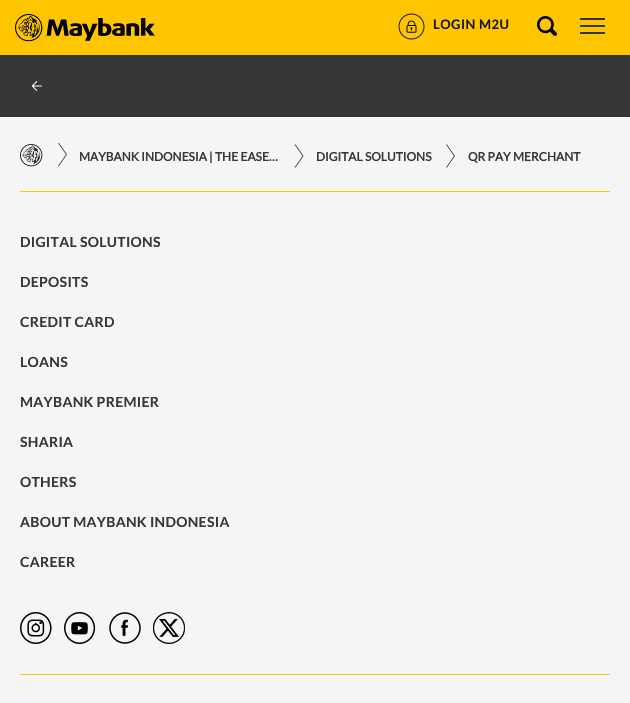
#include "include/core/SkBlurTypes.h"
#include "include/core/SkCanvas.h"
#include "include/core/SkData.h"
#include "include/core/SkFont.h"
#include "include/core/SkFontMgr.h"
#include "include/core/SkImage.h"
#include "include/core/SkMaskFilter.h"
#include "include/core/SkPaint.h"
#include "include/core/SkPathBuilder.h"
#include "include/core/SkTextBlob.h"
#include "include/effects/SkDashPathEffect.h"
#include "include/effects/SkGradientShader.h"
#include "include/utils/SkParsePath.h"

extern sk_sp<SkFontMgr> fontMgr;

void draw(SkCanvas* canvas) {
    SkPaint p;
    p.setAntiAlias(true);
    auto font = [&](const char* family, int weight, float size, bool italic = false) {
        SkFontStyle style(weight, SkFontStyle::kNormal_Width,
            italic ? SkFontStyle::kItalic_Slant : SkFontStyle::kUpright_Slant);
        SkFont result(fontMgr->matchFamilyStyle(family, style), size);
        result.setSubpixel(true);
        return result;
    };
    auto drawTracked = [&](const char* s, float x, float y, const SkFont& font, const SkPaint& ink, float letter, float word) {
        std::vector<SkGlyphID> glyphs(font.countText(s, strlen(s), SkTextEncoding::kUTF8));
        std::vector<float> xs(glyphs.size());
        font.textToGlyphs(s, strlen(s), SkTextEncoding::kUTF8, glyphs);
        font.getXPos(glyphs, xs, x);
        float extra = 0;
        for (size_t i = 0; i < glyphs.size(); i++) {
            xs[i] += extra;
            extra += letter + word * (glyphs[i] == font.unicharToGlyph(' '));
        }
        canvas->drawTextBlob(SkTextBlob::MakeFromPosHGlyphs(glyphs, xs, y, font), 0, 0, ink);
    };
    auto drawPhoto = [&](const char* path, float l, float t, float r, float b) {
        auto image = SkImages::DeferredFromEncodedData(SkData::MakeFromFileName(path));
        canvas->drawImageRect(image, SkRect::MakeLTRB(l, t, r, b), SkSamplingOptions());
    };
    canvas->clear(0xFF373737);
    p.setColor(0xFFFFC600);
    canvas->drawRect(SkRect::MakeLTRB(0, 0, 630, 55), p);
    drawPhoto("media/1.png", 15, 14, 155, 42);
    drawPhoto("media/2.png", 398, 13, 425, 40);
    auto font1 = font("Lato", 700, 13);
    p.setColor(0xFF171717);
    drawTracked("LOGIN M2U", 433, 29, font1, p, 0.5f, 0);
    drawPhoto("media/3.png", 537, 16, 557, 36);
    {
        const struct { float l, t, r, b; SkColor color; } items[] = {
            {580, 18, 605, 20, 0xFF373737},
            {580, 25, 605, 27, 0xFF373737},
            {580, 32, 605, 34, 0xFF373737},
        };
        for (auto [l, t, r, b, color] : items) {
            p.setColor(color);
            canvas->drawRect(SkRect::MakeLTRB(l, t, r, b), p);
        }
    }
    drawPhoto("media/4.png", 32, 81, 42, 91);
    p.setColor(0xFFF5F5F5);
    canvas->drawRect(SkRect::MakeLTRB(0, 117, 630, 703), p);
    drawPhoto("media/5.png", 20, 144, 43, 167);
    p.setColor(0xFF373737);
    canvas->drawPath(SkPathBuilder().moveTo(58, 143).lineTo(59, 143).lineTo(67, 154.5f).lineTo(66, 154.5f).close().detach(), p);
    canvas->drawPath(SkPathBuilder().moveTo(66, 154.5f).lineTo(67, 154.5f).lineTo(59, 166).lineTo(58, 166).close().detach(), p);
    auto font2 = font("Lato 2", 700, 12);
    canvas->drawString("MAYBANK INDONESIA | THE EASE…", 79, 161, font2, p);
    canvas->drawPath(SkPathBuilder().moveTo(294.5f, 144.5f).lineTo(295.5f, 144.5f).lineTo(303.5f, 156).lineTo(302.5f, 156).close().moveTo(302.5f, 156).lineTo(303.5f, 156).lineTo(295.5f, 167.5f).lineTo(294.5f, 167.5f).close().detach(), p);
    canvas->drawString("DIGITAL SOLUTIONS", 316, 161, font2, p);
    canvas->drawPath(SkPathBuilder().moveTo(446, 144.5f).lineTo(447, 144.5f).lineTo(455, 156).lineTo(454, 156).close().moveTo(454, 156).lineTo(455, 156).lineTo(447, 167.5f).lineTo(446, 167.5f).close().detach(), p);
    canvas->drawString("QR PAY MERCHANT", 468, 161, font2, p);
    p.setColor(0xFFFFC600);
    canvas->drawRect(SkRect::MakeLTRB(20, 191, 610, 192), p);
    auto font3 = font("Lato", 700, 14);
    p.setColor(0xFF373737);
    {
        const struct { const char* s; float x, y; } items[] = {
            {"DIGITAL SOLUTIONS", 20, 247},
            {"DEPOSITS", 20, 287},
            {"CREDIT CARD", 20, 327},
            {"LOANS", 20, 367},
            {"MAYBANK PREMIER", 20, 407},
            {"SHARIA", 20, 447},
            {"OTHERS", 20, 487},
            {"ABOUT MAYBANK INDONESIA", 20, 527},
            {"CAREER", 20, 567},
        };
        for (auto [s, x, y] : items) {
            drawTracked(s, x, y, font3, p, 0.3f, 0);
        }
    }
    drawPhoto("media/6.png", 20, 612, 52, 644);
    drawPhoto("media/7.png", 64, 612, 96, 644);
    drawPhoto("media/8.png", 109, 612, 141, 644);
    drawPhoto("media/9.png", 153, 612, 185, 644);
    p.setColor(0xFFFFC600);
    canvas->drawRect(SkRect::MakeLTRB(20, 674, 610, 675), p);
}
